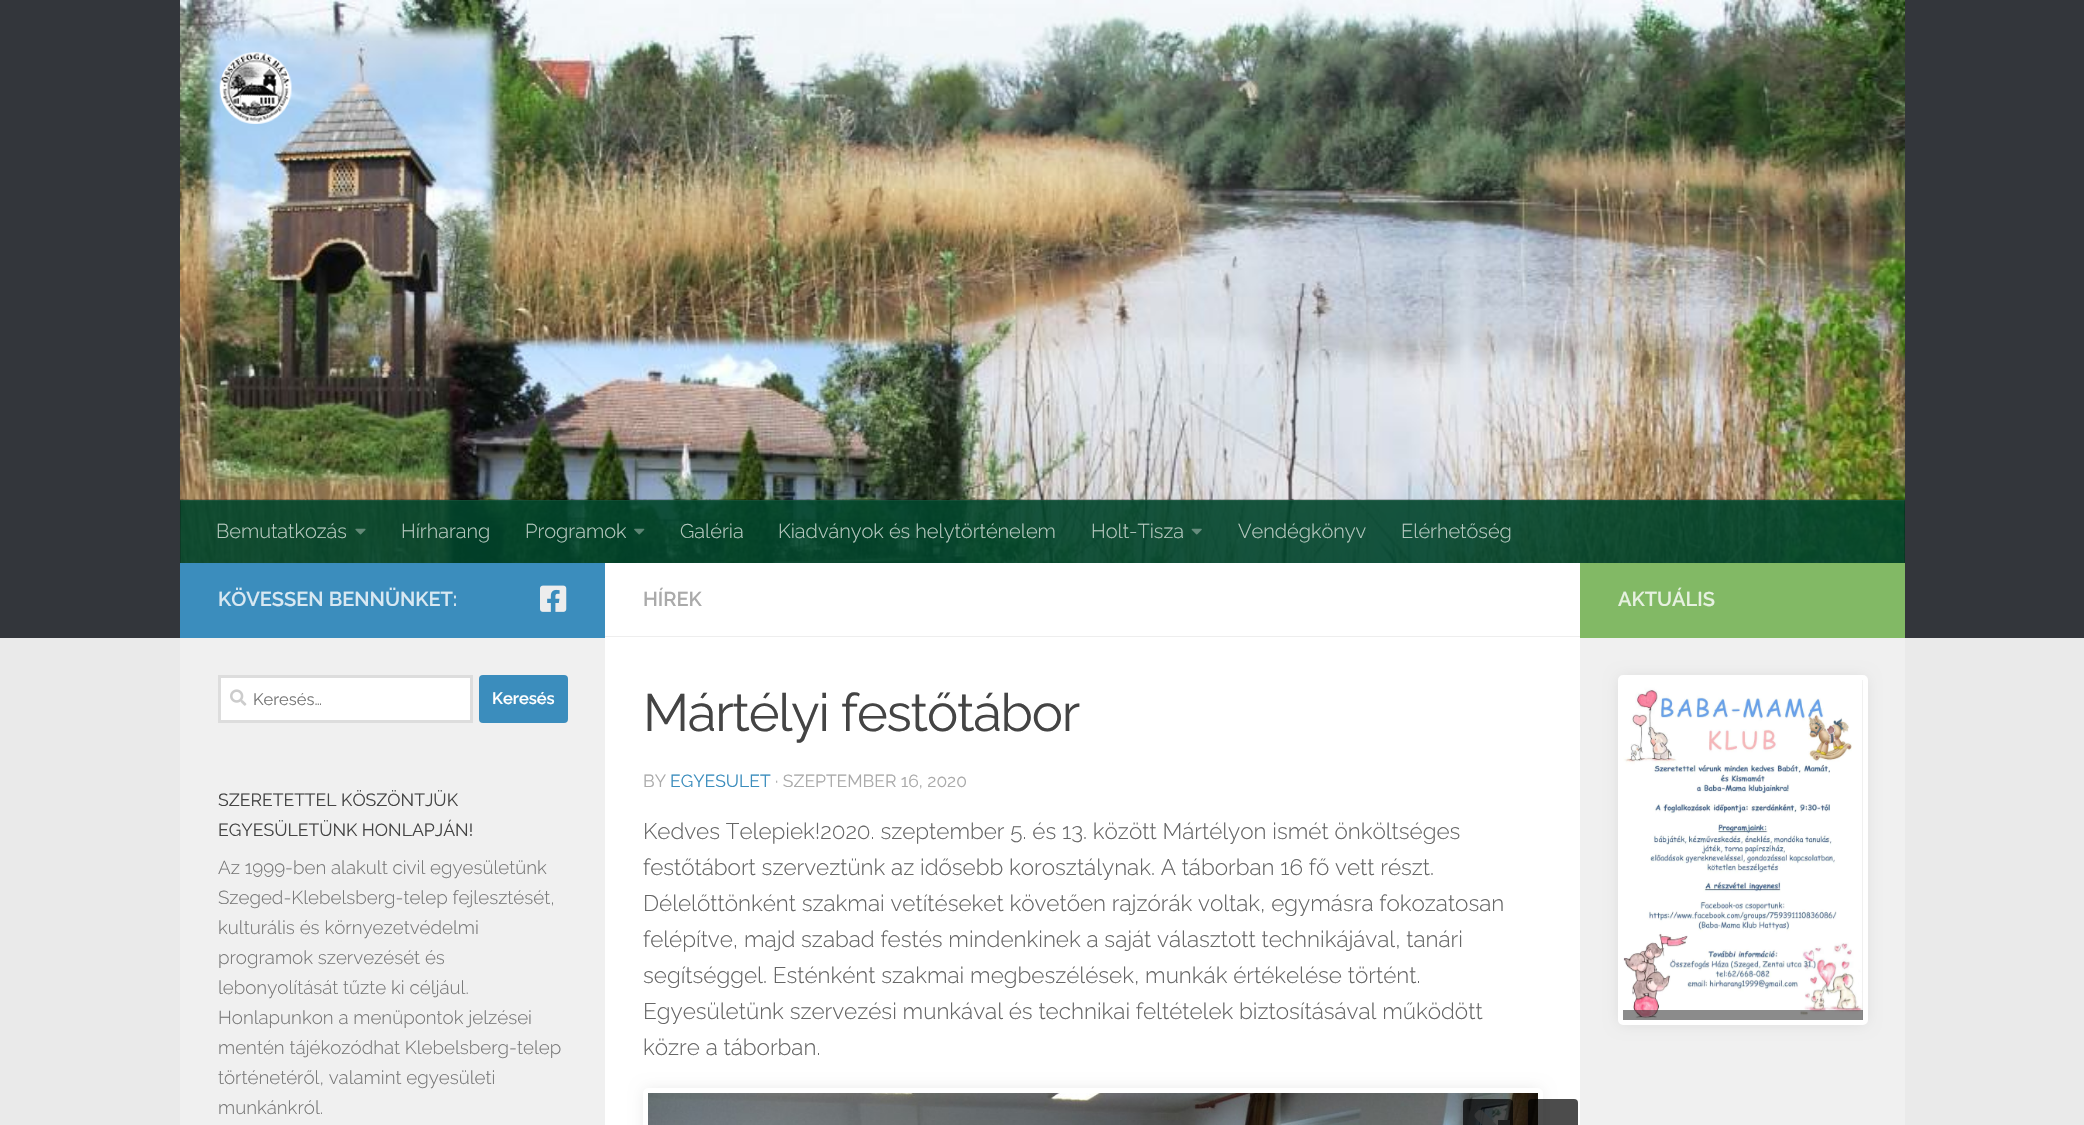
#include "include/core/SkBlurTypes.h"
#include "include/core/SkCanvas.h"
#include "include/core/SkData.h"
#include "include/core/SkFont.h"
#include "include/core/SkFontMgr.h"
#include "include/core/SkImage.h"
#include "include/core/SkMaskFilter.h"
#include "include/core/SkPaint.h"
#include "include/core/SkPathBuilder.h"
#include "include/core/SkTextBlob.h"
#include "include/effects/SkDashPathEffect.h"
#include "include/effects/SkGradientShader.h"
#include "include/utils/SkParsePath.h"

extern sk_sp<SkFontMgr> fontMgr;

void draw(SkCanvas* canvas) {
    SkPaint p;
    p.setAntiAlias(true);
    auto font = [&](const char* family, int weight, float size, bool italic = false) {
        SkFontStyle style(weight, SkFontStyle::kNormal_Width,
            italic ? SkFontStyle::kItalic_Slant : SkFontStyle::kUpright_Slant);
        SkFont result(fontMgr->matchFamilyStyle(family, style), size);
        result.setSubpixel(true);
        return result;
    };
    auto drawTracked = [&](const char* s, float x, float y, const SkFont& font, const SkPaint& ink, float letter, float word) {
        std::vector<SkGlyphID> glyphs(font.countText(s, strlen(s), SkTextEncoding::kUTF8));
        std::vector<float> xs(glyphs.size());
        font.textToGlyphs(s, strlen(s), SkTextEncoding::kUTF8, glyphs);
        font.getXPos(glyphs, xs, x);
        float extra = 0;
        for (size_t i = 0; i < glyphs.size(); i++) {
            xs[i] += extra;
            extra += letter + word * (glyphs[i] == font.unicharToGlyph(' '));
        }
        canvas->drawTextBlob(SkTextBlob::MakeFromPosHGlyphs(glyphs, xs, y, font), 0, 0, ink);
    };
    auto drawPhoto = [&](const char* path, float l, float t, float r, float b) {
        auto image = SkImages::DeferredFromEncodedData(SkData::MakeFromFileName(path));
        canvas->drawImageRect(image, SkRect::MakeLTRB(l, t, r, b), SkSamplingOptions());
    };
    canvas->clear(0xFFEAEAEA);
    p.setColor(0xFF33363B);
    canvas->drawRect(SkRect::MakeLTRB(0, 0, 2084, 638), p);
    drawPhoto("media/1.png", 180, 0, 1905, 563);
    drawPhoto("media/2.png", 219, 52, 292, 124);
    {
        const struct { float l, t, r, b; SkColor color; } items[] = {
            {180, 499, 1905, 500, 0x33000000},
            {180, 500, 1905, 563, 0xE600442A},
            {1904, 500, 1905, 563, 0x33000000},
            {180, 500, 181, 563, 0x33000000},
            {180, 500, 1905, 501, 0x0DFFFFFF},
        };
        for (auto [l, t, r, b, color] : items) {
            p.setColor(color);
            canvas->drawRect(SkRect::MakeLTRB(l, t, r, b), p);
        }
    }
    auto font1 = font("Raleway", 300, 20);
    p.setColor(0xFFB7C9C0);
    canvas->drawString("Bemutatkozás", 216, 538, font1, p);
    drawPhoto("media/3.png", 355, 528, 366, 535);
    canvas->drawString("Hírharang", 401, 538, font1, p);
    canvas->drawString("Programok", 525, 538, font1, p);
    drawPhoto("media/4.png", 634, 528, 645, 535);
    {
        const struct { const char* s; float x, y; } items[] = {
            {"Galéria", 680, 538},
            {"Kiadványok és helytörténelem", 778, 538},
            {"Holt-Tisza", 1091, 538},
        };
        for (auto [s, x, y] : items) {
            canvas->drawString(s, x, y, font1, p);
        }
    }
    drawPhoto("media/5.png", 1191, 528, 1202, 535);
    canvas->drawString("Vendégkönyv", 1238, 538, font1, p);
    canvas->drawString("Elérhetőség", 1401, 538, font1, p);
    p.setColor(0xFFFFFFFF);
    canvas->drawRect(SkRect::MakeLTRB(605, 563, 1580, 1125), p);
    p.setColor(0xFF3B8DBD);
    canvas->drawRect(SkRect::MakeLTRB(180, 563, 605, 638), p);
    auto font2 = font("Raleway", 600, 20);
    p.setColor(0xFFD8E8F2);
    canvas->drawString("KÖVESSEN BENNÜNKET:", 218, 606, font2, p);
    drawPhoto("media/6.png", 540, 585, 567, 612);
    p.setColor(0xFFF0F0F0);
    canvas->drawRect(SkRect::MakeLTRB(180, 638, 605, 1125), p);
    p.setColor(0xFFFFFFFF);
    canvas->drawRect(SkRect::MakeLTRB(219.5f, 676.5f, 471.5f, 721.5f), p);
    p.setStyle(SkPaint::kStroke_Style);
    p.setStrokeWidth(3);
    p.setColor(0xFFDDDDDD);
    canvas->drawRect(SkRect::MakeLTRB(219.5f, 676.5f, 471.5f, 721.5f), p);
    drawPhoto("media/7.png", 230, 689, 247, 706);
    auto font3 = font("Raleway", 400, 16.5f);
    p.setStyle(SkPaint::kFill_Style);
    p.setColor(0xFF777777);
    canvas->drawString("Keresés…", 253, 705, font3, p);
    p.setColor(0xFF3B8DBD);
    canvas->drawRoundRect(SkRect::MakeLTRB(479, 675, 568, 723), 4, 4, p);
    auto font4 = font("Raleway", 600, 16.5f);
    p.setColor(0xFFFFFFFF);
    canvas->drawString("Keresés", 492, 704, font4, p);
    auto font5 = font("Raleway", 400, 17.6f);
    p.setColor(0xFF444444);
    canvas->drawString("SZERETETTEL KÖSZÖNTJÜK", 218, 806, font5, p);
    canvas->drawString("EGYESÜLETÜNK HONLAPJÁN!", 218, 836, font5, p);
    auto font6 = font("Raleway", 300, 18.75f);
    p.setColor(0xFF777777);
    {
        const struct { const char* s; float x, y; } items[] = {
            {"Az 1999-ben alakult civil egyesületünk", 218, 874},
            {"Szeged-Klebelsberg-telep fejlesztését,", 218, 904},
            {"kulturális és környezetvédelmi", 218, 934},
            {"programok szervezését és", 218, 964},
            {"lebonyolítását tűzte ki céljául.", 218, 994},
            {"Honlapunkon a menüpontok jelzései", 218, 1024},
            {"mentén tájékozódhat Klebelsberg-telep", 218, 1054},
            {"történetéről, valamint egyesületi", 218, 1084},
            {"munkánkról.", 218, 1114},
        };
        for (auto [s, x, y] : items) {
            canvas->drawString(s, x, y, font6, p);
        }
    }
    p.setColor(0xFFEEEEEE);
    canvas->drawRect(SkRect::MakeLTRB(605, 636, 1580, 637), p);
    p.setColor(0xFFAAAAAA);
    canvas->drawString("HÍREK", 643, 606, font2, p);
    auto font7 = font("Raleway", 400, 52.5f);
    p.setColor(0xFF444444);
    drawTracked("Mártélyi festőtábor", 643, 731, font7, p, -1.25f, 0);
    auto font8 = font("Raleway", 400, 17.5f);
    p.setColor(0xFFAAAAAA);
    canvas->drawString("BY", 643, 787, font8, p);
    p.setColor(0xFF3B8DBD);
    canvas->drawString("EGYESULET", 670, 787, font8, p);
    p.setColor(0xFFAAAAAA);
    canvas->drawString("· SZEPTEMBER 16, 2020", 775, 787, font8, p);
    auto font9 = font("Raleway", 300, 22.5f);
    p.setColor(0xFF666666);
    {
        const struct { const char* s; float x, y; } items[] = {
            {"Kedves Telepiek!2020. szeptember 5. és 13. között Mártélyon ismét önköltséges", 643, 839},
            {"festőtábort szerveztünk az idősebb korosztálynak. A táborban 16 fő vett részt.", 643, 875},
            {"Délelőttönként szakmai vetítéseket követően rajzórák voltak, egymásra fokozatosan", 643, 911},
            {"felépítve, majd szabad festés mindenkinek a saját választott technikájával, tanári", 643, 947},
            {"segítséggel. Esténként szakmai megbeszélések, munkák értékelése történt.", 643, 983},
            {"Egyesületünk szervezési munkával és technikai feltételek biztosításával működött", 643, 1019},
            {"közre a táborban.", 643, 1055},
        };
        for (auto [s, x, y] : items) {
            canvas->drawString(s, x, y, font9, p);
        }
    }
    p.setColor(0x1A000000);
    p.setMaskFilter(SkMaskFilter::MakeBlur(kNormal_SkBlurStyle, 7.5f));
    canvas->drawRoundRect(SkRect::MakeLTRB(645, 1090, 1540, 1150), 2.5f, 2.5f, p);
    p.setMaskFilter(nullptr);
    p.setStyle(SkPaint::kStroke_Style);
    p.setStrokeWidth(5);
    p.setColor(0xFFFFFFFF);
    canvas->drawRoundRect(SkRect::MakeLTRB(645.5f, 1090.5f, 1540.5f, 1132.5f), 2.5f, 2.5f, p);
    drawPhoto("media/8.png", 648, 1093, 1538, 1125);
    p.setStyle(SkPaint::kFill_Style);
    p.setColor(0xFF666666);
    canvas->drawRect(SkRect::MakeLTRB(1498, 1120, 1510, 1125), p);
    p.setColor(0xB3000000);
    canvas->drawRoundRect(SkRect::MakeLTRB(1463, 1099, 1513, 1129), 4, 4, p);
    drawPhoto("media/9.png", 1474, 1110, 1497, 1125);
    canvas->drawRoundRect(SkRect::MakeLTRB(1528, 1099, 1578, 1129), 4, 4, p);
    p.setColor(0xFF82B965);
    canvas->drawRect(SkRect::MakeLTRB(1580, 563, 1905, 638), p);
    p.setColor(0xFFE6F1E0);
    canvas->drawString("AKTUÁLIS", 1618, 606, font2, p);
    p.setColor(0xFFF0F0F0);
    canvas->drawRect(SkRect::MakeLTRB(1580, 638, 1905, 1125), p);
    p.setColor(0x1A000000);
    p.setMaskFilter(SkMaskFilter::MakeBlur(kNormal_SkBlurStyle, 7.5f));
    canvas->drawRoundRect(SkRect::MakeLTRB(1620, 678, 1865, 1023), 2.5f, 2.5f, p);
    p.setMaskFilter(nullptr);
    p.setStyle(SkPaint::kStroke_Style);
    p.setColor(0xFFFFFFFF);
    canvas->drawRoundRect(SkRect::MakeLTRB(1620.5f, 677.5f, 1865.5f, 1022.5f), 2.5f, 2.5f, p);
    drawPhoto("media/10.png", 1623, 680, 1863, 1020);
    p.setStyle(SkPaint::kFill_Style);
    p.setColor(0x87242424);
    canvas->drawRect(SkRect::MakeLTRB(1623, 1010, 1863, 1020), p);
}
